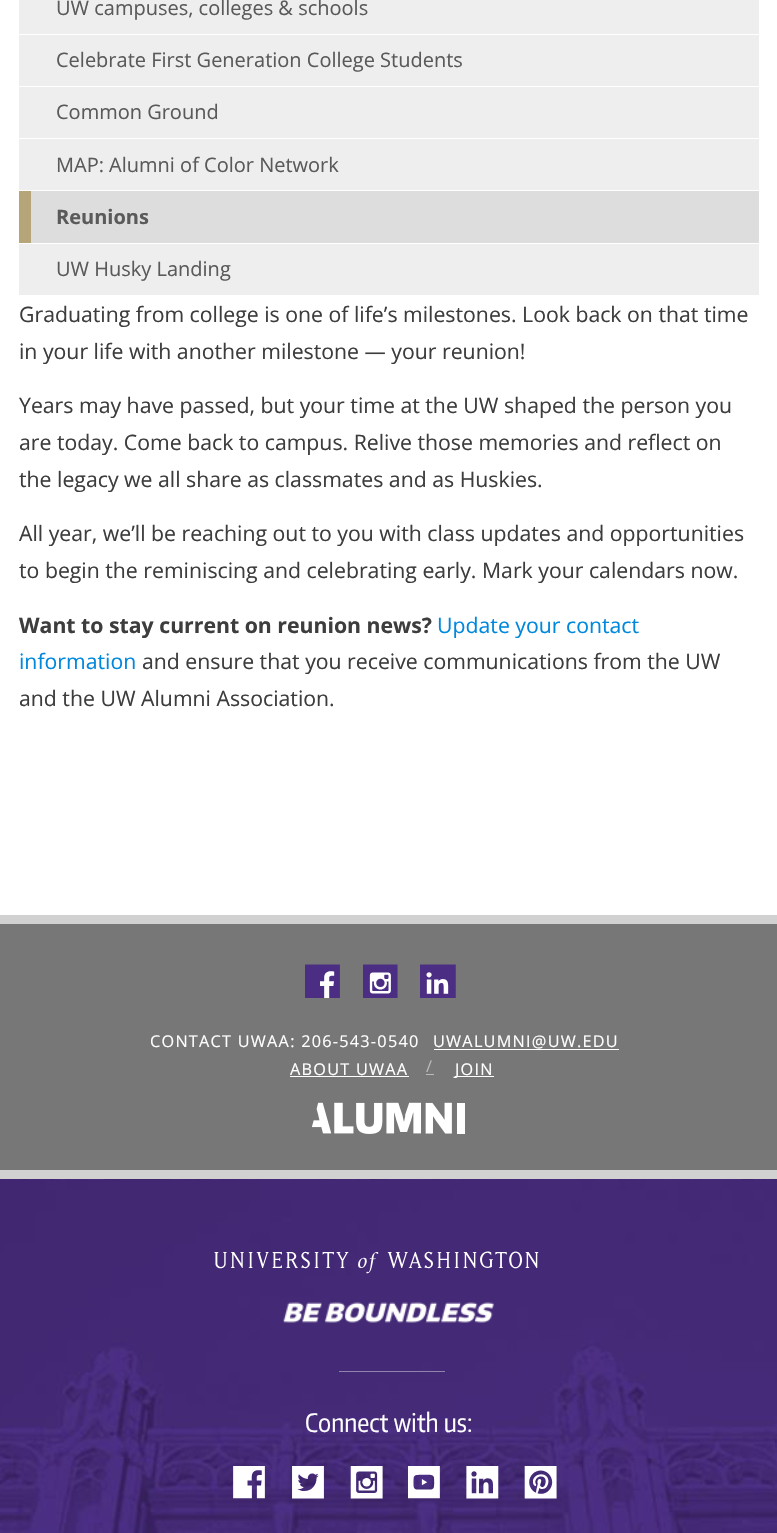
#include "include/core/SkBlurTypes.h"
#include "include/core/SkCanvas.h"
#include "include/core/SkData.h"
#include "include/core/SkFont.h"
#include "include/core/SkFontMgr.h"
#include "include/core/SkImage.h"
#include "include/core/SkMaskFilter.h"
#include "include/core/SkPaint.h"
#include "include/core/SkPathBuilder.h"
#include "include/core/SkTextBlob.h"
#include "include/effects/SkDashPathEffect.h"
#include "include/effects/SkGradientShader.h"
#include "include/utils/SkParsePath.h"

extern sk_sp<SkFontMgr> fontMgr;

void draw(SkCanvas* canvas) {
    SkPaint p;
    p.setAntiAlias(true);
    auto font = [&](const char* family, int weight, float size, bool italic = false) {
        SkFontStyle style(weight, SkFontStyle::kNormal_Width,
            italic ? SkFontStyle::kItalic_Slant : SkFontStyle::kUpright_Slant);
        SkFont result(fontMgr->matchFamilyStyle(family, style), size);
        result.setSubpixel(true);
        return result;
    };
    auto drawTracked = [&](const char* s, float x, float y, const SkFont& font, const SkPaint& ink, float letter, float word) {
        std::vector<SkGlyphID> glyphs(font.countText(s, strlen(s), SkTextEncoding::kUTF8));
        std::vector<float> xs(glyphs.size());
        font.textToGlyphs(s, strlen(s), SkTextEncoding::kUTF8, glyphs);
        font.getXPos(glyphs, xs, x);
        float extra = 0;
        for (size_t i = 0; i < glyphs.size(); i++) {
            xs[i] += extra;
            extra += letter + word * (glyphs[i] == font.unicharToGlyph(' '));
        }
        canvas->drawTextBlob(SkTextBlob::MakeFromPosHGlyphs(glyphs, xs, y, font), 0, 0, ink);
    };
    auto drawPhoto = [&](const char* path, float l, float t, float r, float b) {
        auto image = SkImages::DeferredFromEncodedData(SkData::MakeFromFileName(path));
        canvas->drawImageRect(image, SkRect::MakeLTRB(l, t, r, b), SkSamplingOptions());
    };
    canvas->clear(0xFFFFFFFF);
    p.setColor(0xFFEEEEEE);
    canvas->drawRect(SkRect::MakeLTRB(19, 0, 759, 34), p);
    auto font1 = font("Open Sans", 400, 20);
    p.setColor(0xFF5A5A5A);
    canvas->drawString("UW campuses, colleges & schools", 56, 15, font1, p);
    p.setColor(0xFFEEEEEE);
    canvas->drawRect(SkRect::MakeLTRB(19, 35, 759, 138), p);
    p.setColor(0xFFFFFFFF);
    canvas->drawRect(SkRect::MakeLTRB(19, 86, 759, 87), p);
    p.setColor(0xFF5A5A5A);
    canvas->drawString("Celebrate First Generation College Students", 56, 67, font1, p);
    canvas->drawString("Common Ground", 56, 119, font1, p);
    p.setColor(0xFFEEEEEE);
    canvas->drawRect(SkRect::MakeLTRB(19, 139, 759, 190), p);
    p.setColor(0xFF5A5A5A);
    canvas->drawString("MAP: Alumni of Color Network", 56, 172, font1, p);
    p.setColor(0xFFDDDDDD);
    canvas->drawRect(SkRect::MakeLTRB(31, 191, 759, 243), p);
    p.setColor(0xFFB7A57A);
    canvas->drawRect(SkRect::MakeLTRB(19, 191, 31, 243), p);
    auto font2 = font("Open Sans", 700, 20);
    p.setColor(0xFF5A5A5A);
    canvas->drawString("Reunions", 56, 224, font2, p);
    p.setColor(0xFFEEEEEE);
    canvas->drawRect(SkRect::MakeLTRB(19, 244, 759, 295), p);
    p.setColor(0xFF5A5A5A);
    canvas->drawString("UW Husky Landing", 56, 276, font1, p);
    auto font3 = font("Open Sans", 400, 21.25f);
    p.setColor(0xFF3D3D3D);
    {
        const struct { const char* s; float x, y; } items[] = {
            {"Graduating from college is one of life’s milestones. Look back on that time", 19, 322},
            {"in your life with another milestone — your reunion!", 19, 359},
            {"Years may have passed, but your time at the UW shaped the person you", 19, 413},
            {"are today. Come back to campus. Relive those memories and reflect on", 19, 450},
            {"the legacy we all share as classmates and as Huskies.", 19, 487},
            {"All year, we’ll be reaching out to you with class updates and opportunities", 19, 541},
            {"to begin the reminiscing and celebrating early. Mark your calendars now.", 19, 578},
        };
        for (auto [s, x, y] : items) {
            canvas->drawString(s, x, y, font3, p);
        }
    }
    auto font4 = font("Open Sans", 700, 21.25f);
    canvas->drawString("Want to stay current on reunion news?", 19, 633, font4, p);
    p.setColor(0xFF0088DD);
    canvas->drawString("Update your contact", 437, 633, font3, p);
    canvas->drawString("information", 19, 669, font3, p);
    p.setColor(0xFF3D3D3D);
    canvas->drawString("and ensure that you receive communications from the UW", 142, 669, font3, p);
    canvas->drawString("and the UW Alumni Association.", 19, 706, font3, p);
    {
        const struct { float l, t, r, b; SkColor color; } items[] = {
            {0, 924, 777, 1170, 0xFF777777},
            {0, 915, 777, 924, 0xFFD1D1D1},
            {320, 971, 335, 998, 0xFFFFFFFF},
        };
        for (auto [l, t, r, b, color] : items) {
            p.setColor(color);
            canvas->drawRect(SkRect::MakeLTRB(l, t, r, b), p);
        }
    }
    drawPhoto("media/1.png", 305, 964, 340, 998);
    canvas->drawRect(SkRect::MakeLTRB(369, 972, 391, 994), p);
    drawPhoto("media/2.png", 363, 964, 398, 998);
    canvas->drawRect(SkRect::MakeLTRB(426, 972, 449, 994), p);
    drawPhoto("media/3.png", 420, 964, 456, 998);
    auto font5 = font("Open Sans", 400, 16.25f);
    drawTracked("CONTACT UWAA: 206-543-0540", 150, 1047, font5, p, 1.25f, 0);
    drawTracked("UWALUMNI@UW.EDU", 433, 1047, font5, p, 1.25f, 0);
    canvas->drawRect(SkRect::MakeLTRB(434, 1049, 619, 1050), p);
    drawTracked("ABOUT UWAA", 290, 1075, font5, p, 1.25f, 0);
    canvas->drawRect(SkRect::MakeLTRB(290, 1076, 409, 1077), p);
    p.setColor(0xFFBBBBBB);
    drawTracked("/", 426, 1072, font5, p, 1.25f, 0);
    canvas->drawRect(SkRect::MakeLTRB(426, 1074, 434, 1075), p);
    p.setColor(0xFFFFFFFF);
    canvas->drawRect(SkRect::MakeLTRB(455, 1076, 494, 1077), p);
    drawTracked("JOIN", 455, 1075, font5, p, 1.25f, 0);
    drawPhoto("media/4.png", 311, 1102, 465, 1134);
    drawPhoto("media/5.png", 0, 1179, 777, 1533);
    p.setColor(0xFFD1D1D1);
    canvas->drawRect(SkRect::MakeLTRB(0, 1170, 777, 1179), p);
    drawPhoto("media/6.png", 214, 1251, 539, 1274);
    drawPhoto("media/7.png", 283, 1302, 494, 1323);
    p.setColor(0xFF9184AA);
    canvas->drawRect(SkRect::MakeLTRB(339, 1371, 445, 1372), p);
    auto font6 = font("Encode Sans Condensed", 400, 25);
    p.setColor(0xFFFFFFFF);
    canvas->drawString("Connect with us:", 305, 1432, font6, p);
    drawPhoto("media/8.png", 233, 1466, 265, 1499);
    drawPhoto("media/9.png", 292, 1466, 324, 1499);
    drawPhoto("media/10.png", 350, 1466, 383, 1499);
    drawPhoto("media/11.png", 408, 1466, 440, 1499);
    drawPhoto("media/12.png", 466, 1466, 499, 1499);
    drawPhoto("media/13.png", 524, 1466, 557, 1499);
}
